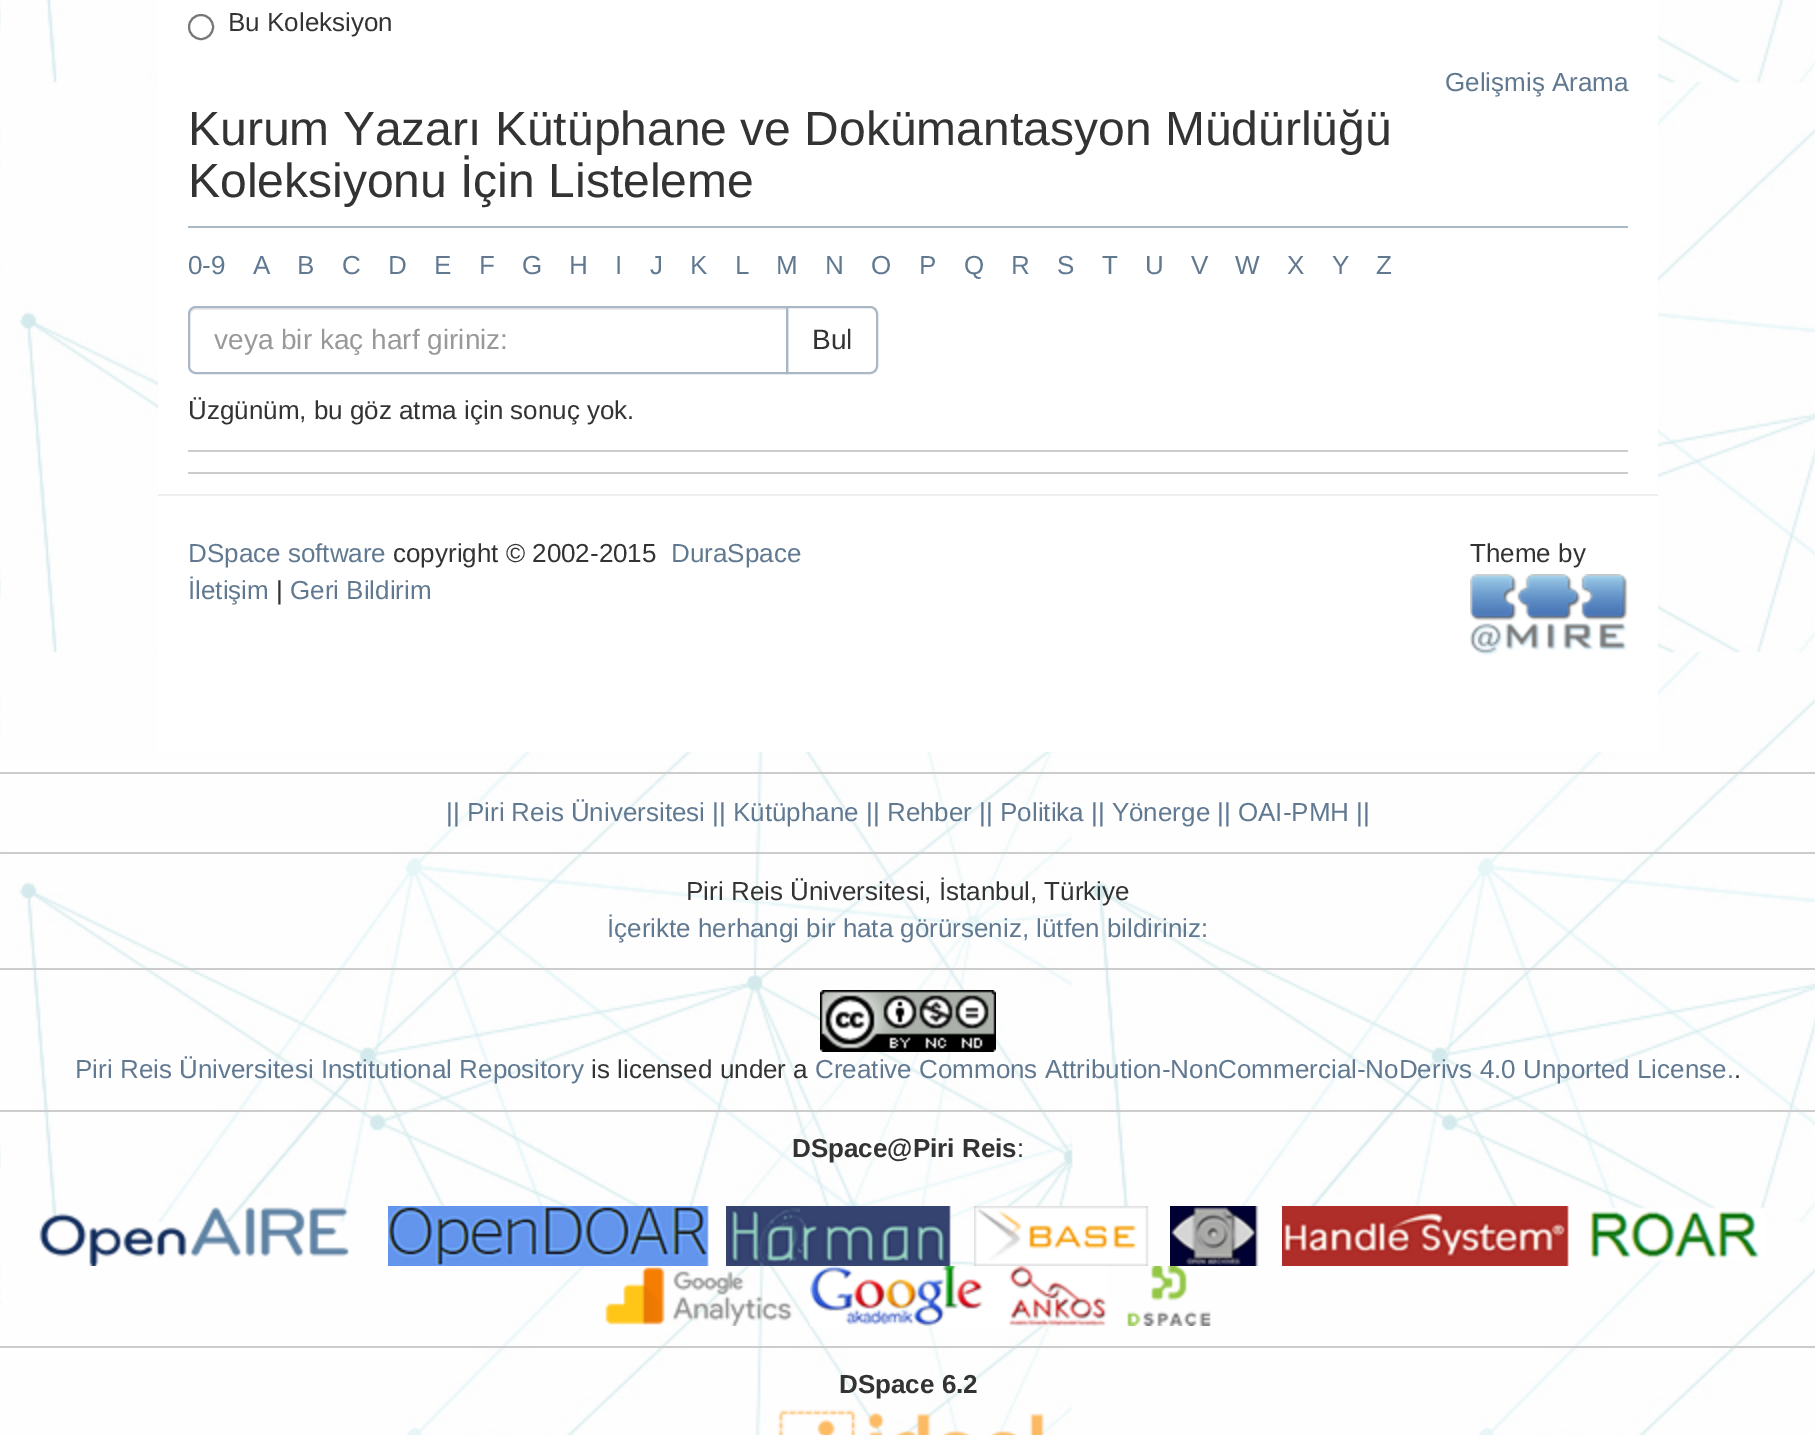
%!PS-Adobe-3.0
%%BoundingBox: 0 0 1815 1435
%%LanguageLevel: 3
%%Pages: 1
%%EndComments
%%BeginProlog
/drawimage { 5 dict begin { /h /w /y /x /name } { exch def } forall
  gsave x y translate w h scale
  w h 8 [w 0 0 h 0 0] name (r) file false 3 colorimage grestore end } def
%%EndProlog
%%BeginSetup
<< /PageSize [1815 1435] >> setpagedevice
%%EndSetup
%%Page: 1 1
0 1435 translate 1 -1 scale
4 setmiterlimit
1 setgray
0 0 1815 1435 rectfill
(images/1.raw) 0 0 1815 1435 drawimage
158 0 1500 752 rectfill
0.463 setgray
2 setlinewidth
newpath 201 27 12 0 360 arc closepath stroke
0.667 0.722 0.776 setrgbcolor
188 226 1440 2 rectfill
newpath 787 307 moveto 870 307 lineto 874 307 877 310 877 314 curveto 877 366 lineto 877 370 874 373 870 373 curveto 787 373 lineto closepath stroke
1 setgray
newpath 196 306 moveto 788 306 lineto 788 374 lineto 196 374 lineto 191.5 374 188 370.5 188 366 curveto 188 314 lineto 188 309.5 191.5 306 196 306 curveto closepath fill
0.925 setgray
newpath 196 310 moveto 786 310 lineto 786 308 lineto 196 308 lineto 191 308 190 312 190 316 curveto 190 313 193 310 196 310 curveto closepath fill
0.667 0.722 0.776 setrgbcolor
newpath 196 307 moveto 787 307 lineto 787 373 lineto 196 373 lineto 192 373 189 370 189 366 curveto 189 314 lineto 189 310 192 307 196 307 curveto closepath stroke
0.8 setgray
188 450 1440 2 rectfill
188 472 1440 2 rectfill
0.933 setgray
158 494 1500 2 rectfill
(images/2.raw) 1470 574 158 82 drawimage
0.8 setgray
0 772 1815 2 rectfill
0 852 1815 2 rectfill
0 968 1815 2 rectfill
(images/3.raw) 820 990 176 62 drawimage
0 1110 1815 2 rectfill
(images/4.raw) 39 1207 310 59 drawimage
(images/5.raw) 388 1206 321 60 drawimage
(images/6.raw) 726 1206 225 60 drawimage
(images/7.raw) 974 1206 175 60 drawimage
(images/8.raw) 1170 1206 89 60 drawimage
(images/9.raw) 1282 1206 287 60 drawimage
(images/10.raw) 1589 1207 176 54 drawimage
(images/11.raw) 605 1266 188 60 drawimage
(images/12.raw) 810 1266 194 60 drawimage
(images/13.raw) 1004 1266 103 60 drawimage
(images/14.raw) 1127 1266 84 60 drawimage
0 1346 1815 2 rectfill
(images/15.raw) 777 1409 268 26 drawimage
/LiberationSans-Regular [26 0 0 -26 0 0] selectfont
0.2 setgray
228 31 moveto (Bu Koleksiyon) show
0.376 0.471 0.565 setrgbcolor
1445 91 moveto (Gelişmiş Arama) show
/LiberationSans-Regular [48 0 0 -48 0 0] selectfont
0.2 setgray
188 145 moveto (Kurum Yazarı Kütüphane ve Dokümantasyon Müdürlüğü) show
188 197 moveto (Koleksiyonu İçin Listeleme) show
/LiberationSans-Regular [26 0 0 -26 0 0] selectfont
0.376 0.471 0.565 setrgbcolor
188 274 moveto (0-9) show
253 274 moveto (A) show
297 274 moveto (B) show
342 274 moveto (C) show
388 274 moveto (D) show
434 274 moveto (E) show
479 274 moveto (F) show
522 274 moveto (G) show
569 274 moveto (H) show
615 274 moveto (I) show
650 274 moveto (J) show
690 274 moveto (K) show
735 274 moveto (L) show
776 274 moveto (M) show
825 274 moveto (N) show
871 274 moveto (O) show
919 274 moveto (P) show
964 274 moveto (Q) show
1011 274 moveto (R) show
1057 274 moveto (S) show
1102 274 moveto (T) show
1145 274 moveto (U) show
1191 274 moveto (V) show
1235 274 moveto (W) show
1287 274 moveto (X) show
1332 274 moveto (Y) show
1376 274 moveto (Z) show
/LiberationSans-Regular [28 0 0 -28 0 0] selectfont
0.6 setgray
214 349 moveto (veya bir kaç harf giriniz:) show
0.2 setgray
812 349 moveto (Bul) show
/LiberationSans-Regular [26 0 0 -26 0 0] selectfont
188 419 moveto (Üzgünüm, bu göz atma için sonuç yok.) show
0.376 0.471 0.565 setrgbcolor
188 562 moveto (DSpace software) show
0.2 setgray
393 562 moveto (copyright © 2002-2015) show
0.376 0.471 0.565 setrgbcolor
671 562 moveto (DuraSpace) show
188 599 moveto (İletişim) show
0.2 setgray
276 599 moveto (|) show
0.376 0.471 0.565 setrgbcolor
290 599 moveto (Geri Bildirim) show
0.2 setgray
1470 562 moveto (Theme by) show
0.376 0.471 0.565 setrgbcolor
446 821 moveto (|| Piri Reis Üniversitesi || Kütüphane || Rehber || Politika || Yönerge || OAI-PMH ||) show
0.2 setgray
686 900 moveto (Piri Reis Üniversitesi, İstanbul, Türkiye) show
0.376 0.471 0.565 setrgbcolor
607 937 moveto (İçerikte herhangi bir hata görürseniz, lütfen bildiriniz:) show
75 1078 moveto (Piri Reis Üniversitesi Institutional Repository) show
0.2 setgray
591 1078 moveto (is licensed under a) show
0.376 0.471 0.565 setrgbcolor
815 1078 moveto (Creative Commons Attribution-NonCommercial-NoDerivs 4.0 Unported License.) show
0.2 setgray
1734 1078 moveto (.) show
/LiberationSans-Bold [26 0 0 -26 0 0] selectfont
792 1157 moveto (DSpace@Piri Reis) show
/LiberationSans-Regular [26 0 0 -26 0 0] selectfont
1017 1157 moveto (:) show
/LiberationSans-Bold [26 0 0 -26 0 0] selectfont
839 1393 moveto (DSpace 6.2) show
showpage
%%EOF
